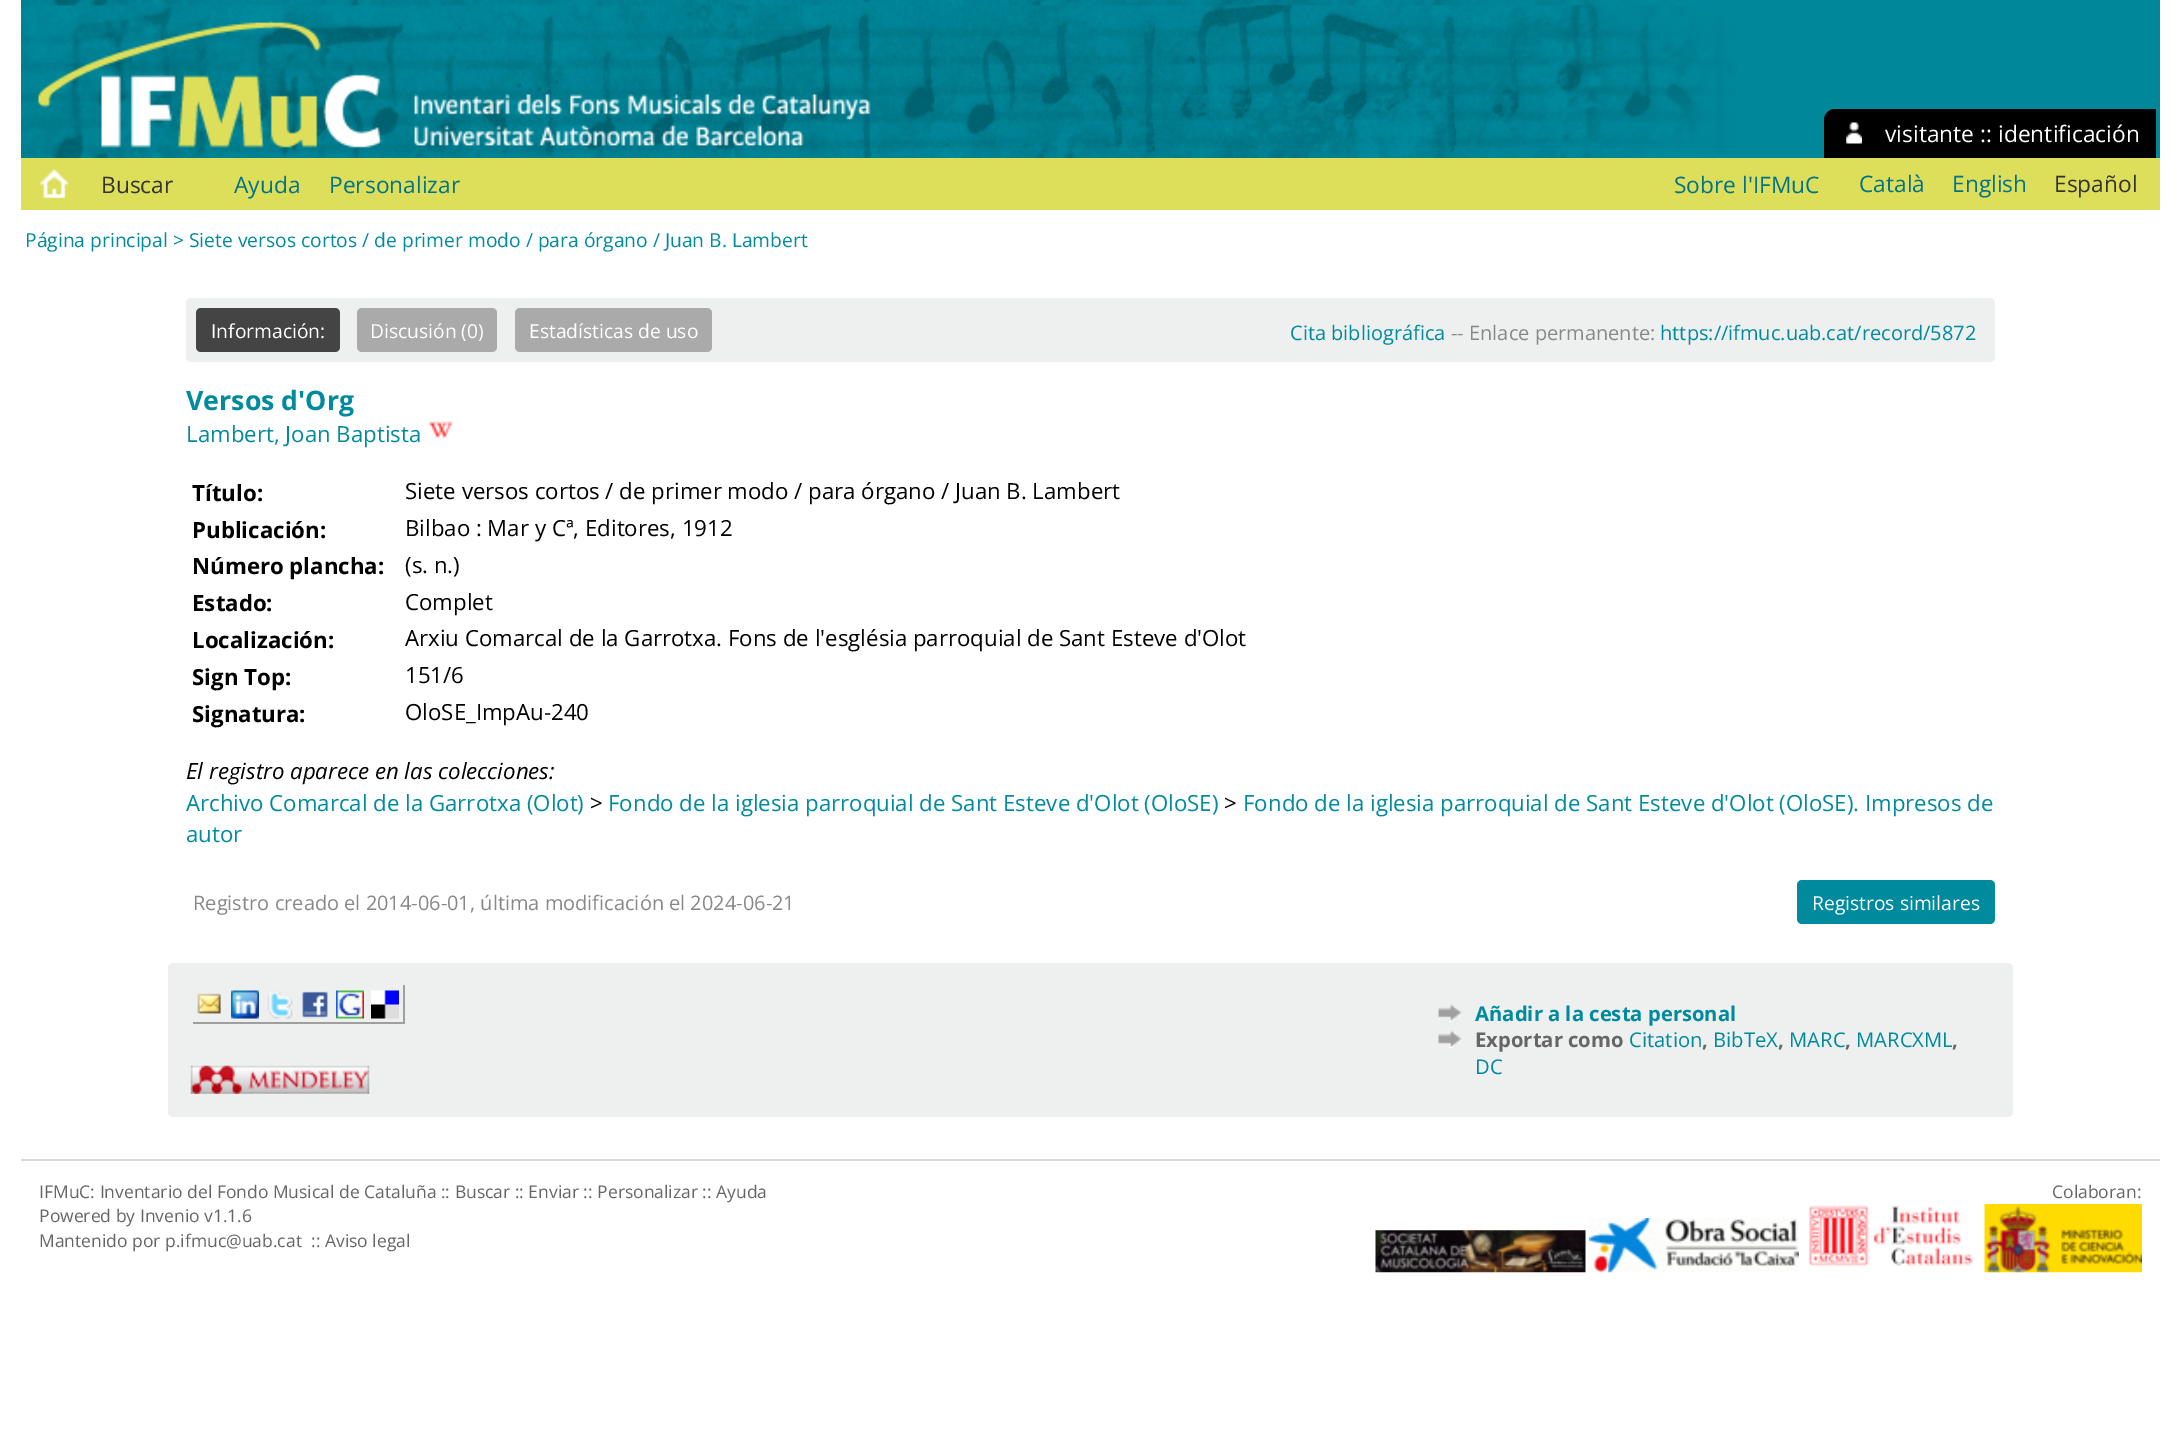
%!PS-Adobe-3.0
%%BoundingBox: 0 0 2180 1445
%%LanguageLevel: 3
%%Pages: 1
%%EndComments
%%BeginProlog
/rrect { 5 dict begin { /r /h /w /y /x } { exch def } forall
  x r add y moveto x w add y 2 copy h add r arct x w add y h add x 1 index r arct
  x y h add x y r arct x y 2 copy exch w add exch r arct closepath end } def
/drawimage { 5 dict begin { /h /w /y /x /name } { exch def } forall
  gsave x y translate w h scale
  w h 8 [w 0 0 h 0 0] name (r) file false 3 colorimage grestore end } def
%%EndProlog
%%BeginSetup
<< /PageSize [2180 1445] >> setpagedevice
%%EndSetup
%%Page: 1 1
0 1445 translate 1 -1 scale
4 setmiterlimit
1 setgray
0 0 2180 1445 rectfill
0 0.529 0.604 setrgbcolor
1737 0 423 158 rectfill
(images/1.raw) 21 0 1716 158 drawimage
0 setgray
newpath 1835 109 moveto 2156 109 lineto 2156 158 lineto 1824 158 lineto 1824 120 lineto 1824 114 1829 109 1835 109 curveto closepath fill
(images/2.raw) 1846 122 16 22 drawimage
0.867 0.875 0.353 setrgbcolor
21 158 2139 52 rectfill
(images/3.raw) 40 169 29 29 drawimage
0.933 0.941 0.937 setrgbcolor
186 298 1809 64 5 rrect fill
0.267 setgray
196 308 144 44 5 rrect fill
0.667 setgray
357 308 140 44 5 rrect fill
515 308 197 44 5 rrect fill
(images/4.raw) 428 421 26 17 drawimage
0 0.541 0.62 setrgbcolor
1797 880 198 44 5 rrect fill
0.933 0.941 0.937 setrgbcolor
168 963 1845 154 5 rrect fill
0.624 setgray
403 985 2 39 rectfill
191 1022 213 2 rectfill
0.933 setgray
191 1022 2 2 rectfill
(images/5.raw) 197 993 24 21 drawimage
(images/6.raw) 231 990 28 29 drawimage
(images/7.raw) 267 991 26 28 drawimage
(images/8.raw) 302 991 26 27 drawimage
(images/9.raw) 336 990 28 29 drawimage
(images/10.raw) 371 990 28 29 drawimage
(images/11.raw) 190 1065 180 29 drawimage
(images/12.raw) 1438 1004 24 18 drawimage
(images/13.raw) 1438 1030 24 18 drawimage
0.831 0.855 0.839 setrgbcolor
21 1159 2139 2 rectfill
(images/14.raw) 1375 1230 211 43 drawimage
(images/15.raw) 1589 1218 210 55 drawimage
(images/16.raw) 1809 1205 164 61 drawimage
(images/17.raw) 1984 1204 158 69 drawimage
/OpenSans-Regular [22.75 0 0 -22.75 0 0] selectfont
1 setgray
1885 142 moveto (visitante :: identificación) show
0.2 setgray
101 193 moveto (Buscar) show
0 0.447 0.541 setrgbcolor
234 193 moveto (Ayuda) show
329 193 moveto (Personalizar) show
1674 193 moveto (Sobre l'IFMuC) show
1859 192 moveto (Català) show
1952 192 moveto (English) show
0.2 setgray
2054 192 moveto (Español) show
/OpenSans-Regular [19.25 0 0 -19.25 0 0] selectfont
0 0.541 0.62 setrgbcolor
25 247 moveto (Página principal > Siete versos cortos / de primer modo / para órgano / Juan B. Lambert) show
1 setgray
211 338 moveto (Información:) show
370 338 moveto (Discusión \(0\)) show
529 338 moveto (Estadísticas de uso) show
/OpenSans-Regular [20 0 0 -20 0 0] selectfont
0 0.541 0.62 setrgbcolor
1290 340 moveto (Cita bibliográfica) show
0.533 setgray
1451 340 moveto (-- Enlace permanente:) show
0 0.541 0.62 setrgbcolor
1660 340 moveto (https://ifmuc.uab.cat/record/5872) show
/OpenSans-Bold [26.75 0 0 -26.75 0 0] selectfont
186 410 moveto (Versos d'Org) show
/OpenSans-Regular [22.25 0 0 -22.25 0 0] selectfont
186 442 moveto (Lambert, Joan Baptista) show
/OpenSans-Bold [22.25 0 0 -22.25 0 0] selectfont
0 setgray
192 501 moveto (Título:) show
/OpenSans-Regular [22.25 0 0 -22.25 0 0] selectfont
405 499 moveto (Siete versos cortos / de primer modo / para órgano / Juan B. Lambert) show
/OpenSans-Bold [22.25 0 0 -22.25 0 0] selectfont
192 538 moveto (Publicación:) show
/OpenSans-Regular [22.25 0 0 -22.25 0 0] selectfont
405 536 moveto (Bilbao : Mar y Cª, Editores, 1912) show
/OpenSans-Bold [22.25 0 0 -22.25 0 0] selectfont
192 574 moveto (Número plancha:) show
/OpenSans-Regular [22.25 0 0 -22.25 0 0] selectfont
405 573 moveto (\(s. n.\)) show
/OpenSans-Bold [22.25 0 0 -22.25 0 0] selectfont
192 611 moveto (Estado:) show
/OpenSans-Regular [22.25 0 0 -22.25 0 0] selectfont
405 610 moveto (Complet) show
/OpenSans-Bold [22.25 0 0 -22.25 0 0] selectfont
192 648 moveto (Localización:) show
/OpenSans-Regular [22.25 0 0 -22.25 0 0] selectfont
405 646 moveto (Arxiu Comarcal de la Garrotxa. Fons de l'església parroquial de Sant Esteve d'Olot) show
/OpenSans-Bold [22.25 0 0 -22.25 0 0] selectfont
192 685 moveto (Sign Top:) show
/OpenSans-Regular [22.25 0 0 -22.25 0 0] selectfont
405 683 moveto (151/6) show
/OpenSans-Bold [22.25 0 0 -22.25 0 0] selectfont
192 722 moveto (Signatura:) show
/OpenSans-Regular [22.25 0 0 -22.25 0 0] selectfont
405 720 moveto (OloSE_ImpAu-240) show
/OpenSans-Italic [22.25 0 0 -22.25 0 0] selectfont
186 779 moveto (El registro aparece en las colecciones:) show
/OpenSans-Regular [22.25 0 0 -22.25 0 0] selectfont
0 0.541 0.62 setrgbcolor
186 811 moveto (Archivo Comarcal de la Garrotxa \(Olot\)) show
0 setgray
590 811 moveto (>) show
0 0.541 0.62 setrgbcolor
608 811 moveto (Fondo de la iglesia parroquial de Sant Esteve d'Olot \(OloSE\)) show
0 setgray
1224 811 moveto (>) show
0 0.541 0.62 setrgbcolor
1243 811 moveto (Fondo de la iglesia parroquial de Sant Esteve d'Olot \(OloSE\). Impresos de) show
186 842 moveto (autor) show
/OpenSans-Regular [20 0 0 -20 0 0] selectfont
0.533 setgray
193 910 moveto (Registro creado el 2014-06-01, última modificación el 2024-06-21) show
/OpenSans-Regular [19.25 0 0 -19.25 0 0] selectfont
1 setgray
1812 910 moveto (Registros similares) show
/OpenSans-Bold [20.25 0 0 -20.25 0 0] selectfont
0 0.541 0.62 setrgbcolor
1475 1021 moveto (Añadir a la cesta personal) show
0.4 setgray
1475 1047 moveto (Exportar como) show
/OpenSans-Regular [20.25 0 0 -20.25 0 0] selectfont
0 0.541 0.62 setrgbcolor
1629 1047 moveto (Citation) show
/OpenSans-Bold [20.25 0 0 -20.25 0 0] selectfont
0.4 setgray
1702 1047 moveto (,) show
/OpenSans-Regular [20.25 0 0 -20.25 0 0] selectfont
0 0.541 0.62 setrgbcolor
1713 1047 moveto (BibTeX) show
/OpenSans-Bold [20.25 0 0 -20.25 0 0] selectfont
0.4 setgray
1778 1047 moveto (,) show
/OpenSans-Regular [20.25 0 0 -20.25 0 0] selectfont
0 0.541 0.62 setrgbcolor
1789 1047 moveto (MARC) show
/OpenSans-Bold [20.25 0 0 -20.25 0 0] selectfont
0.4 setgray
1845 1047 moveto (,) show
/OpenSans-Regular [20.25 0 0 -20.25 0 0] selectfont
0 0.541 0.62 setrgbcolor
1856 1047 moveto (MARCXML) show
/OpenSans-Bold [20.25 0 0 -20.25 0 0] selectfont
0.4 setgray
1952 1047 moveto (,) show
/OpenSans-Regular [20.25 0 0 -20.25 0 0] selectfont
0 0.541 0.62 setrgbcolor
1475 1074 moveto (DC) show
/OpenSans-Regular [17.5 0 0 -17.5 0 0] selectfont
0.4 setgray
39 1198 moveto (IFMuC: Inventario del Fondo Musical de Cataluña :: Buscar :: Enviar :: Personalizar :: Ayuda) show
39 1222 moveto (Powered by Invenio v1.1.6) show
39 1247 moveto (Mantenido por p.ifmuc@uab.cat) show
311 1247 moveto (:: Aviso legal) show
2052 1198 moveto (Colaboran:) show
showpage
%%EOF
